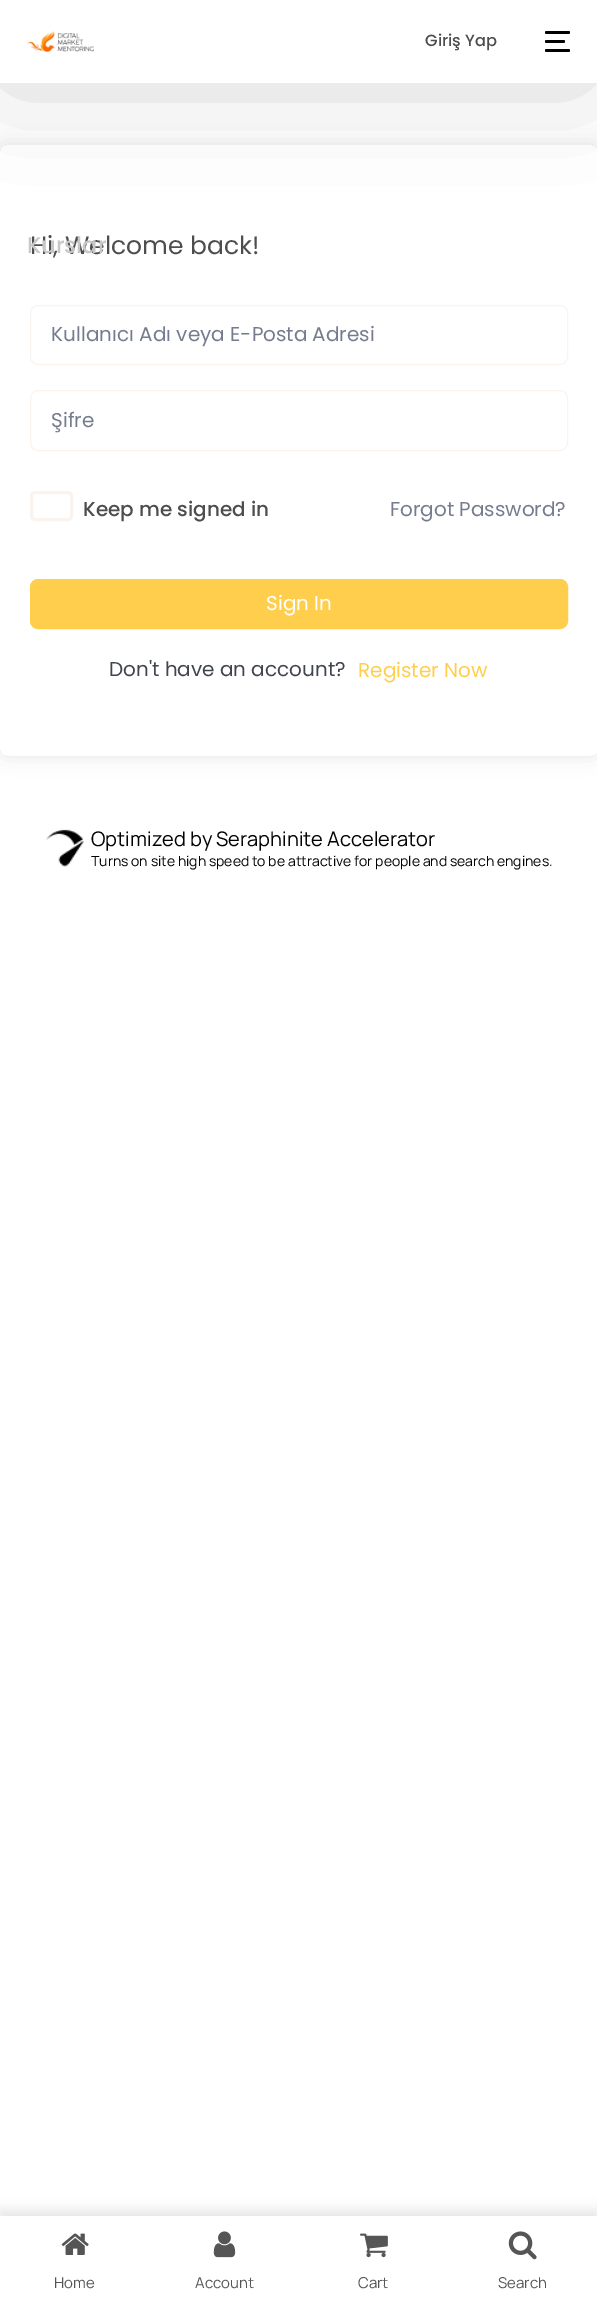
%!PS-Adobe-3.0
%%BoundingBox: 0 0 597 2314
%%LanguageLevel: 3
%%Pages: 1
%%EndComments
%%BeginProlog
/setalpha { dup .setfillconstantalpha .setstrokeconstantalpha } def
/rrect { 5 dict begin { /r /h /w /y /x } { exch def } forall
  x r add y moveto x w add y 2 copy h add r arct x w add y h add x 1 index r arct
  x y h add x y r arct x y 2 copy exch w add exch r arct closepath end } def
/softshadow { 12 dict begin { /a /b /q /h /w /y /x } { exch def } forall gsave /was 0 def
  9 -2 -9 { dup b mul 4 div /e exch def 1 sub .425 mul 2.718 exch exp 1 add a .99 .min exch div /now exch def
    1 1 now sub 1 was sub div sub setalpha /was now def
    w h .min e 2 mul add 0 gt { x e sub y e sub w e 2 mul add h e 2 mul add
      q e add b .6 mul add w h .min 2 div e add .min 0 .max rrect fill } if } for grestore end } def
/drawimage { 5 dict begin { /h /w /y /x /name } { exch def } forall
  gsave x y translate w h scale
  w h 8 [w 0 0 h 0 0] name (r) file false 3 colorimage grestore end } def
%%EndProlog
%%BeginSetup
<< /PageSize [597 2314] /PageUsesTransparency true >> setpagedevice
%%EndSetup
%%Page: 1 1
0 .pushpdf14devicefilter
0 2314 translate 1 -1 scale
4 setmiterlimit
1 setgray
0 0 597 2314 rectfill
0 setgray
23 29 547 32 0 56 0.25 softshadow
1 setgray
0 0 597 83 rectfill
(images/1.raw) 27 31 67 21 drawimage
0 setgray
545 31 25 3 1.5 rrect fill
545 40 20 3 1.5 rrect fill
545 49 25 3 1.5 rrect fill
gsave
newpath 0 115 moveto 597 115 lineto 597 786 lineto 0 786 lineto closepath 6 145 moveto 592 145 lineto 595.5 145 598 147.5 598 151 curveto 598 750 lineto 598 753.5 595.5 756 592 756 curveto 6 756 lineto 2.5 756 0 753.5 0 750 curveto 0 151 lineto 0 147.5 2.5 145 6 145 curveto closepath eoclip newpath
0 145 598 611 6 9.5 0.1 softshadow
grestore
0.984 0.957 0.933 setrgbcolor
30.5 305.5 537 59 7.5 rrect stroke
30.5 390.5 537 60 7.5 rrect stroke
3 setlinewidth
31.5 492.5 40 27 3.5 rrect stroke
1 0.808 0.298 setrgbcolor
30.5 579.5 537 49 7.5 rrect gsave fill grestore
1 setlinewidth
stroke
(images/2.raw) 46 829 38 38 drawimage
0 setgray
0 2210 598 99 0 6 0.1 softshadow
1 setgray
0 2216 597 98 rectfill
(images/3.raw) 61 2233 28 22 drawimage
(images/4.raw) 213 2231 23 27 drawimage
(images/5.raw) 360 2233 28 25 drawimage
(images/6.raw) 508 2231 29 29 drawimage
/Poppins-Medium [16.25 0 0 -16.25 0 0] selectfont
0.302 setgray
425 46 moveto (Giriş Yap) show
/Poppins-Regular [25 0 0 -25 0 0] selectfont
30 254 moveto (Hi, Welcome back!) show
/Poppins-Regular [20 0 0 -20 0 0] selectfont
0.459 0.486 0.557 setrgbcolor
51 341 moveto (Kullanıcı Adı veya E-Posta Adresi) show
51 427 moveto (Şifre) show
/Poppins-Medium [20 0 0 -20 0 0] selectfont
0.302 setgray
83 516 moveto (Keep me signed in) show
/Poppins-Regular [20 0 0 -20 0 0] selectfont
0.459 0.486 0.557 setrgbcolor
390 516 moveto (Forgot Password?) show
1 setgray
266 610 moveto (Sign In) show
0.255 0.271 0.31 setrgbcolor
109 676 moveto (Don't have an account?) show
1 0.808 0.298 setrgbcolor
358 677 moveto (Register Now) show
/Poppins-Medium [22.5 0 0 -22.5 0 0] selectfont
0.78 setgray
27 253 moveto (Kurslar) show
/Manrope-Regular [20 0 0 -20 0 0] selectfont
0 setgray
91 846 moveto (Optimized by Seraphinite Accelerator) show
/Manrope-Regular [14 0 0 -14 0 0] selectfont
91 866 moveto (Turns on site high speed to be attractive for people and search engines.) show
/Manrope-Regular [15 0 0 -15 0 0] selectfont
0.333 setgray
54 2288 moveto (Home) show
195 2288 moveto (Account) show
358 2288 moveto (Cart) show
498 2288 moveto (Search) show
.poppdf14devicefilter showpage
%%EOF
